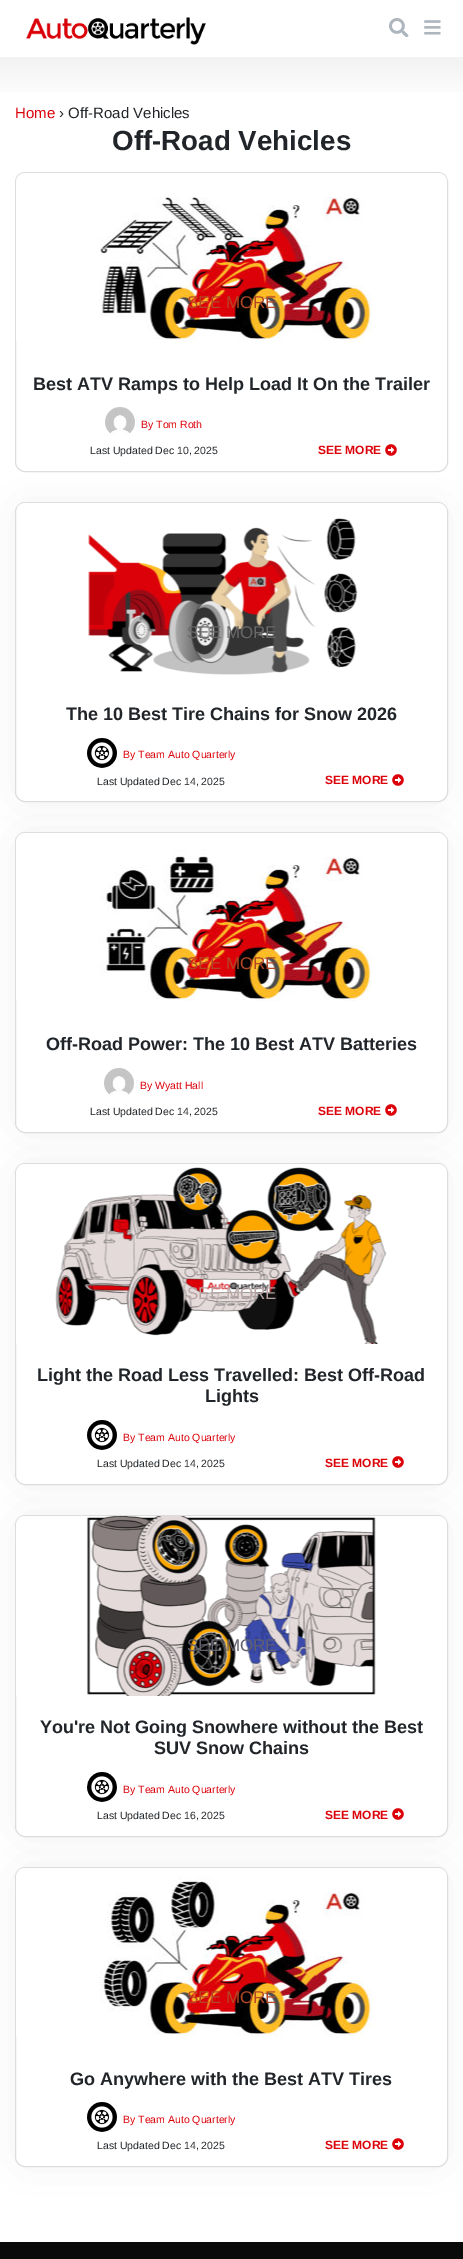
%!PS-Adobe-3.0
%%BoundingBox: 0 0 463 2259
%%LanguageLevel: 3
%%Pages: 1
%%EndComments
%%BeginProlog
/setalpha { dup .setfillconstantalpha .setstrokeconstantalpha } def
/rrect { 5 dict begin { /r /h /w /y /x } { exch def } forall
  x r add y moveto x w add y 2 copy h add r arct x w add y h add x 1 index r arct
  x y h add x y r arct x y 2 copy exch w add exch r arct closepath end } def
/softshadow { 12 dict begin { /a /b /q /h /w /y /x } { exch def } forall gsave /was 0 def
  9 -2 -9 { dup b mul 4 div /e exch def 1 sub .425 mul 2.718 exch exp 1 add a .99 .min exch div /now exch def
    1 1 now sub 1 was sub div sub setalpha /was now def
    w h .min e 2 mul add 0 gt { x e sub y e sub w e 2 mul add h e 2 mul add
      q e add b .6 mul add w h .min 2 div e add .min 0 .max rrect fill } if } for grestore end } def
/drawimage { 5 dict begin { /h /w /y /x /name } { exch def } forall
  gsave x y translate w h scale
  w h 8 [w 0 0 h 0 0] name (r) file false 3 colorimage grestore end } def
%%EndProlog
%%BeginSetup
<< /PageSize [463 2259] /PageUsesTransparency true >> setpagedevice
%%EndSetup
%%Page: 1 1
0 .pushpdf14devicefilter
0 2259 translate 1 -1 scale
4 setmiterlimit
1 setgray
0 0 463 2259 rectfill
(images/1.raw) 26 17 180 28 drawimage
(images/2.raw) 389 18 20 19 drawimage
(images/3.raw) 424 20 17 15 drawimage
gsave newpath 0 57 moveto 463 57 lineto 463 92 lineto 0 92 lineto closepath clip newpath
<< /ShadingType 2 /ColorSpace /DeviceRGB /Coords [231 57 232 2242] /Extend [true true] /Function << /FunctionType 3 /Domain [0 1] /Functions [<< /FunctionType 2 /Domain [0 1] /C0 [0.949 0.949 0.949] /C1 [1 1 1] /N 1 >> << /FunctionType 2 /Domain [0 1] /C0 [1 1 1] /C1 [1 1 1] /N 1 >>] /Bounds [0.02] /Encode [0 1 0 1] >> >> shfill grestore
0.867 setgray
15.5 172.5 432 299 9.5 rrect stroke
(images/4.raw) 16 173 431 168 drawimage
(images/5.raw) 105 407 30 27 drawimage
(images/6.raw) 385 444 12 12 drawimage
0.753 setgray
15 502 433 300 10 24.5 0.24 softshadow
1 setgray
15.5 502.5 432 299 9.5 rrect gsave fill grestore
0.867 setgray
stroke
(images/7.raw) 17 503 430 172 drawimage
(images/8.raw) 87 738 30 30 drawimage
(images/6.raw) 392 774 12 12 drawimage
0.753 setgray
15 832 433 301 10 24.5 0.24 softshadow
1 setgray
15.5 832.5 432 300 9.5 rrect gsave fill grestore
0.867 setgray
stroke
(images/9.raw) 16 833 431 168 drawimage
(images/10.raw) 104 1068 30 27 drawimage
(images/6.raw) 385 1104 12 12 drawimage
0.753 setgray
15 1163 433 322 10 24.5 0.24 softshadow
1 setgray
15.5 1163.5 432 321 9.5 rrect gsave fill grestore
0.867 setgray
stroke
(images/11.raw) 16 1164 431 180 drawimage
(images/12.raw) 87 1420 30 30 drawimage
(images/6.raw) 392 1456 12 12 drawimage
0.753 setgray
15 1515 433 322 10 24.5 0.24 softshadow
1 setgray
15.5 1515.5 432 321 9.5 rrect gsave fill grestore
0.867 setgray
stroke
(images/13.raw) 16 1516 431 180 drawimage
(images/14.raw) 87 1772 30 30 drawimage
(images/6.raw) 392 1808 12 12 drawimage
0.753 setgray
15 1867 433 300 10 24.5 0.24 softshadow
1 setgray
15.5 1867.5 432 299 9.5 rrect gsave fill grestore
0.867 setgray
stroke
(images/15.raw) 16 1868 431 168 drawimage
(images/12.raw) 87 2102 30 30 drawimage
(images/6.raw) 392 2138 12 12 drawimage
0.039 setgray
0 2242 463 17 rectfill
/LiberationSans-Regular [15 0 0 -15 0 0] selectfont
0.863 0 0.035 setrgbcolor
15 118 moveto (Home) show
0.129 0.145 0.161 setrgbcolor
59 118 moveto (› Off-Road Vehicles) show
/LiberationSans-Bold [27.75 0 0 -27.75 0 0] selectfont
112 150 moveto (Off-Road Vehicles) show
/LiberationSans-Regular [17 0 0 -17 0 0] selectfont
0.702 0.278 0.141 setrgbcolor
187 308 moveto (SEE MORE) show
/LiberationSans-Bold [18 0 0 -18 0 0] selectfont
0.129 0.145 0.161 setrgbcolor
33 390 moveto (Best ATV Ramps to Help Load It On the Trailer) show
/LiberationSans-Regular [10.5 0 0 -10.5 0 0] selectfont
0.863 0 0.035 setrgbcolor
141 428 moveto (By Tom Roth) show
0.129 0.145 0.161 setrgbcolor
90 454 moveto (Last Updated Dec 10, 2025) show
/LiberationSans-Bold [12 0 0 -12 0 0] selectfont
0.863 0 0.035 setrgbcolor
318 454 moveto (SEE MORE) show
/LiberationSans-Regular [17 0 0 -17 0 0] selectfont
0.412 0.408 0.408 setrgbcolor
187 638 moveto (SEE MORE) show
/LiberationSans-Bold [18 0 0 -18 0 0] selectfont
0.129 0.145 0.161 setrgbcolor
66 720 moveto (The 10 Best Tire Chains for Snow 2026) show
/LiberationSans-Regular [10.5 0 0 -10.5 0 0] selectfont
0.863 0 0.035 setrgbcolor
123 758 moveto (By Team Auto Quarterly) show
0.129 0.145 0.161 setrgbcolor
97 785 moveto (Last Updated Dec 14, 2025) show
/LiberationSans-Bold [12 0 0 -12 0 0] selectfont
0.863 0 0.035 setrgbcolor
325 784 moveto (SEE MORE) show
/LiberationSans-Regular [17 0 0 -17 0 0] selectfont
0.702 0.278 0.141 setrgbcolor
187 969 moveto (SEE MORE) show
/LiberationSans-Bold [18 0 0 -18 0 0] selectfont
0.129 0.145 0.161 setrgbcolor
46 1050 moveto (Off-Road Power: The 10 Best ATV Batteries) show
/LiberationSans-Regular [10.5 0 0 -10.5 0 0] selectfont
0.863 0 0.035 setrgbcolor
140 1089 moveto (By Wyatt Hall) show
0.129 0.145 0.161 setrgbcolor
90 1115 moveto (Last Updated Dec 14, 2025) show
/LiberationSans-Bold [12 0 0 -12 0 0] selectfont
0.863 0 0.035 setrgbcolor
318 1115 moveto (SEE MORE) show
/LiberationSans-Regular [17 0 0 -17 0 0] selectfont
0.722 0.643 0.643 setrgbcolor
187 1299 moveto (SEE MORE) show
/LiberationSans-Bold [18 0 0 -18 0 0] selectfont
0.129 0.145 0.161 setrgbcolor
37 1381 moveto (Light the Road Less Travelled: Best Off-Road) show
205 1402 moveto (Lights) show
/LiberationSans-Regular [10.5 0 0 -10.5 0 0] selectfont
0.863 0 0.035 setrgbcolor
123 1441 moveto (By Team Auto Quarterly) show
0.129 0.145 0.161 setrgbcolor
97 1467 moveto (Last Updated Dec 14, 2025) show
/LiberationSans-Bold [12 0 0 -12 0 0] selectfont
0.863 0 0.035 setrgbcolor
325 1467 moveto (SEE MORE) show
/LiberationSans-Regular [17 0 0 -17 0 0] selectfont
0.38 0.373 0.427 setrgbcolor
187 1651 moveto (SEE MORE) show
/LiberationSans-Bold [18 0 0 -18 0 0] selectfont
0.129 0.145 0.161 setrgbcolor
40 1733 moveto (You're Not Going Snowhere without the Best) show
154 1754 moveto (SUV Snow Chains) show
/LiberationSans-Regular [10.5 0 0 -10.5 0 0] selectfont
0.863 0 0.035 setrgbcolor
123 1793 moveto (By Team Auto Quarterly) show
0.129 0.145 0.161 setrgbcolor
97 1819 moveto (Last Updated Dec 16, 2025) show
/LiberationSans-Bold [12 0 0 -12 0 0] selectfont
0.863 0 0.035 setrgbcolor
325 1819 moveto (SEE MORE) show
/LiberationSans-Regular [17 0 0 -17 0 0] selectfont
0.702 0.278 0.141 setrgbcolor
187 2003 moveto (SEE MORE) show
/LiberationSans-Bold [18 0 0 -18 0 0] selectfont
0.129 0.145 0.161 setrgbcolor
70 2085 moveto (Go Anywhere with the Best ATV Tires) show
/LiberationSans-Regular [10.5 0 0 -10.5 0 0] selectfont
0.863 0 0.035 setrgbcolor
123 2123 moveto (By Team Auto Quarterly) show
0.129 0.145 0.161 setrgbcolor
97 2149 moveto (Last Updated Dec 14, 2025) show
/LiberationSans-Bold [12 0 0 -12 0 0] selectfont
0.863 0 0.035 setrgbcolor
325 2149 moveto (SEE MORE) show
.poppdf14devicefilter showpage
%%EOF
